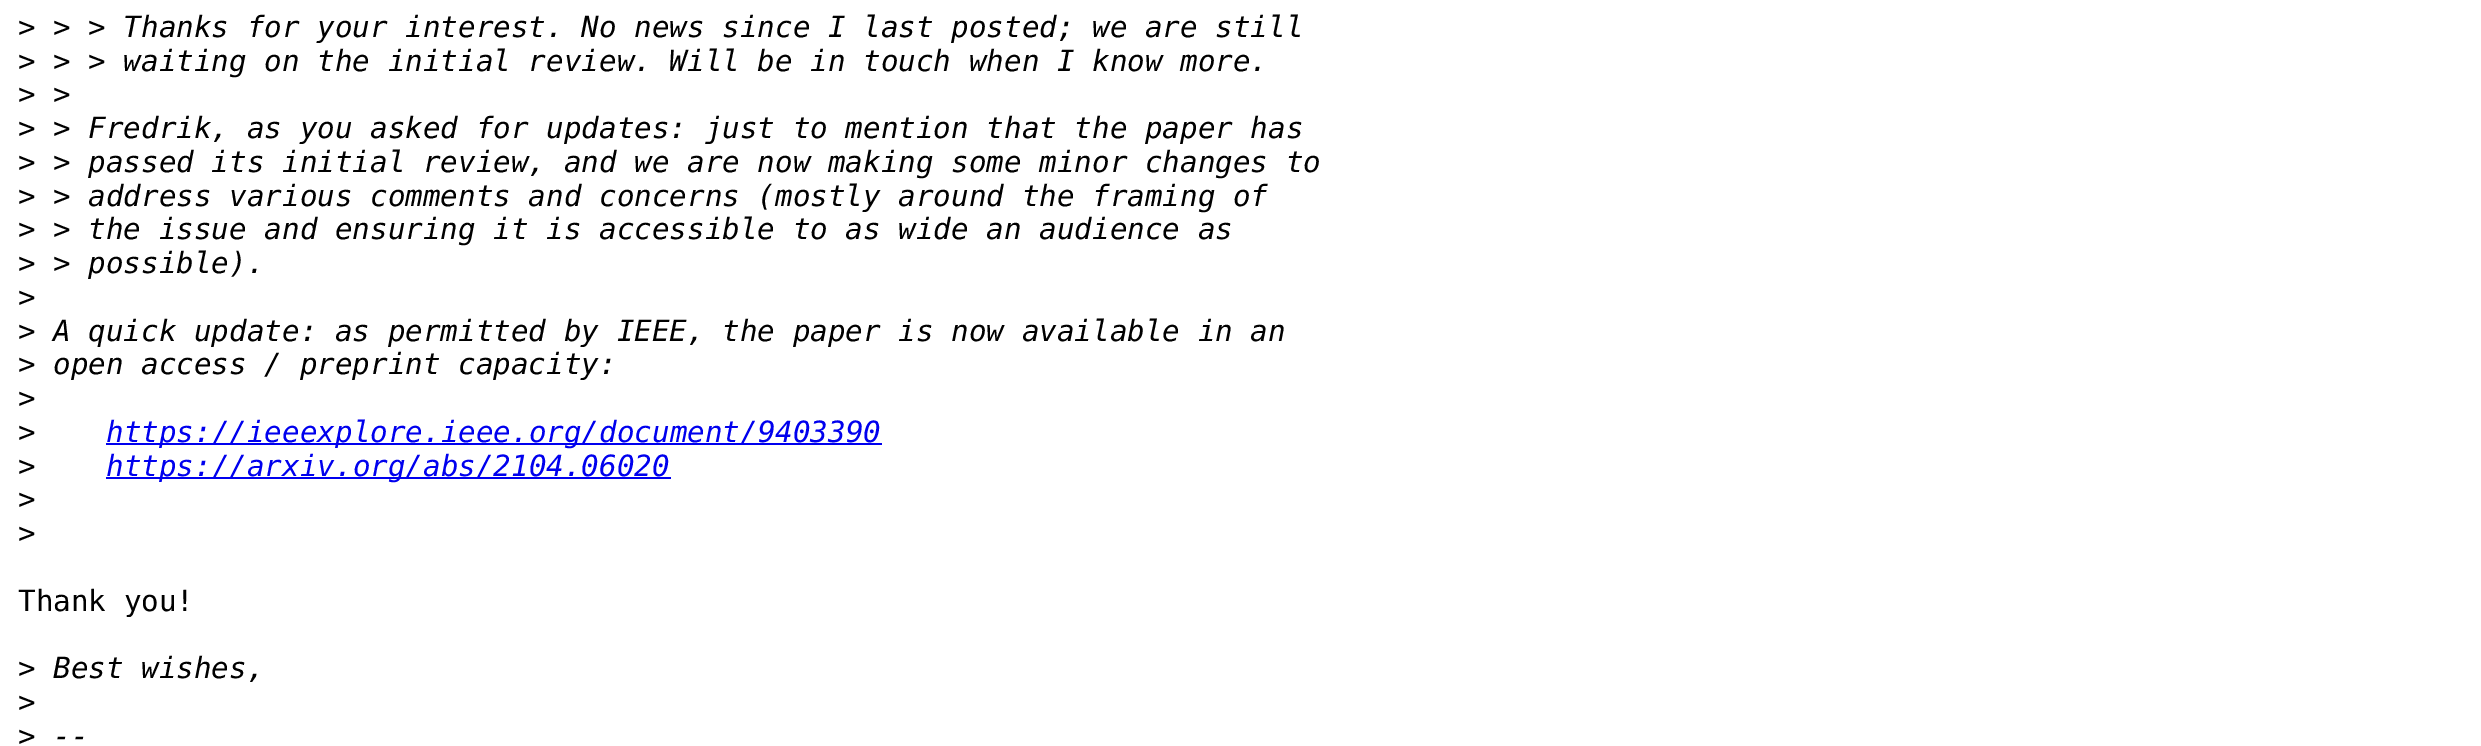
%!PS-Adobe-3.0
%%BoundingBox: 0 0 2481 746
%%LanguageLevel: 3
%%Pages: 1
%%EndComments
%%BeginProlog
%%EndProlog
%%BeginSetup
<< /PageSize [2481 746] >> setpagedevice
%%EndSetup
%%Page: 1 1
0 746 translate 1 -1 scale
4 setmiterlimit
1 setgray
0 0 2481 746 rectfill
0 0 0.933 setrgbcolor
106 443 776 2 rectfill
106 477 565 2 rectfill
/DejaVuSansMono-Regular [29.25 0 0 -29.25 0 0] selectfont
0 setgray
18 37 moveto (>) show
/DejaVuSansMono-Italic [29.25 0 0 -29.25 0 0] selectfont
53 37 moveto (> > Thanks for your interest. No news since I last posted; we are still) show
/DejaVuSansMono-Regular [29.25 0 0 -29.25 0 0] selectfont
18 71 moveto (>) show
/DejaVuSansMono-Italic [29.25 0 0 -29.25 0 0] selectfont
53 71 moveto (> > waiting on the initial review. Will be in touch when I know more.) show
/DejaVuSansMono-Regular [29.25 0 0 -29.25 0 0] selectfont
18 104 moveto (>) show
/DejaVuSansMono-Italic [29.25 0 0 -29.25 0 0] selectfont
53 104 moveto (>) show
/DejaVuSansMono-Regular [29.25 0 0 -29.25 0 0] selectfont
18 138 moveto (>) show
/DejaVuSansMono-Italic [29.25 0 0 -29.25 0 0] selectfont
53 138 moveto (> Fredrik, as you asked for updates: just to mention that the paper has) show
/DejaVuSansMono-Regular [29.25 0 0 -29.25 0 0] selectfont
18 172 moveto (>) show
/DejaVuSansMono-Italic [29.25 0 0 -29.25 0 0] selectfont
53 172 moveto (> passed its initial review, and we are now making some minor changes to) show
/DejaVuSansMono-Regular [29.25 0 0 -29.25 0 0] selectfont
18 206 moveto (>) show
/DejaVuSansMono-Italic [29.25 0 0 -29.25 0 0] selectfont
53 206 moveto (> address various comments and concerns \(mostly around the framing of) show
/DejaVuSansMono-Regular [29.25 0 0 -29.25 0 0] selectfont
18 239 moveto (>) show
/DejaVuSansMono-Italic [29.25 0 0 -29.25 0 0] selectfont
53 239 moveto (> the issue and ensuring it is accessible to as wide an audience as) show
/DejaVuSansMono-Regular [29.25 0 0 -29.25 0 0] selectfont
18 273 moveto (>) show
/DejaVuSansMono-Italic [29.25 0 0 -29.25 0 0] selectfont
53 273 moveto (> possible\).) show
/DejaVuSansMono-Regular [29.25 0 0 -29.25 0 0] selectfont
18 307 moveto (>) show
18 341 moveto (>) show
/DejaVuSansMono-Italic [29.25 0 0 -29.25 0 0] selectfont
53 341 moveto (A quick update: as permitted by IEEE, the paper is now available in an) show
/DejaVuSansMono-Regular [29.25 0 0 -29.25 0 0] selectfont
18 374 moveto (>) show
/DejaVuSansMono-Italic [29.25 0 0 -29.25 0 0] selectfont
53 374 moveto (open access / preprint capacity:) show
/DejaVuSansMono-Regular [29.25 0 0 -29.25 0 0] selectfont
18 408 moveto (>) show
18 442 moveto (>) show
/DejaVuSansMono-Italic [29.25 0 0 -29.25 0 0] selectfont
0 0 0.933 setrgbcolor
106 442 moveto (https://ieeexplore.ieee.org/document/9403390) show
/DejaVuSansMono-Regular [29.25 0 0 -29.25 0 0] selectfont
0 setgray
18 476 moveto (>) show
/DejaVuSansMono-Italic [29.25 0 0 -29.25 0 0] selectfont
0 0 0.933 setrgbcolor
106 476 moveto (https://arxiv.org/abs/2104.06020) show
/DejaVuSansMono-Regular [29.25 0 0 -29.25 0 0] selectfont
0 setgray
18 509 moveto (>) show
18 543 moveto (>) show
18 611 moveto (Thank you!) show
18 678 moveto (>) show
/DejaVuSansMono-Italic [29.25 0 0 -29.25 0 0] selectfont
53 678 moveto (Best wishes,) show
/DejaVuSansMono-Regular [29.25 0 0 -29.25 0 0] selectfont
18 712 moveto (>) show
18 746 moveto (>) show
/DejaVuSansMono-Italic [29.25 0 0 -29.25 0 0] selectfont
53 746 moveto (--) show
showpage
%%EOF
